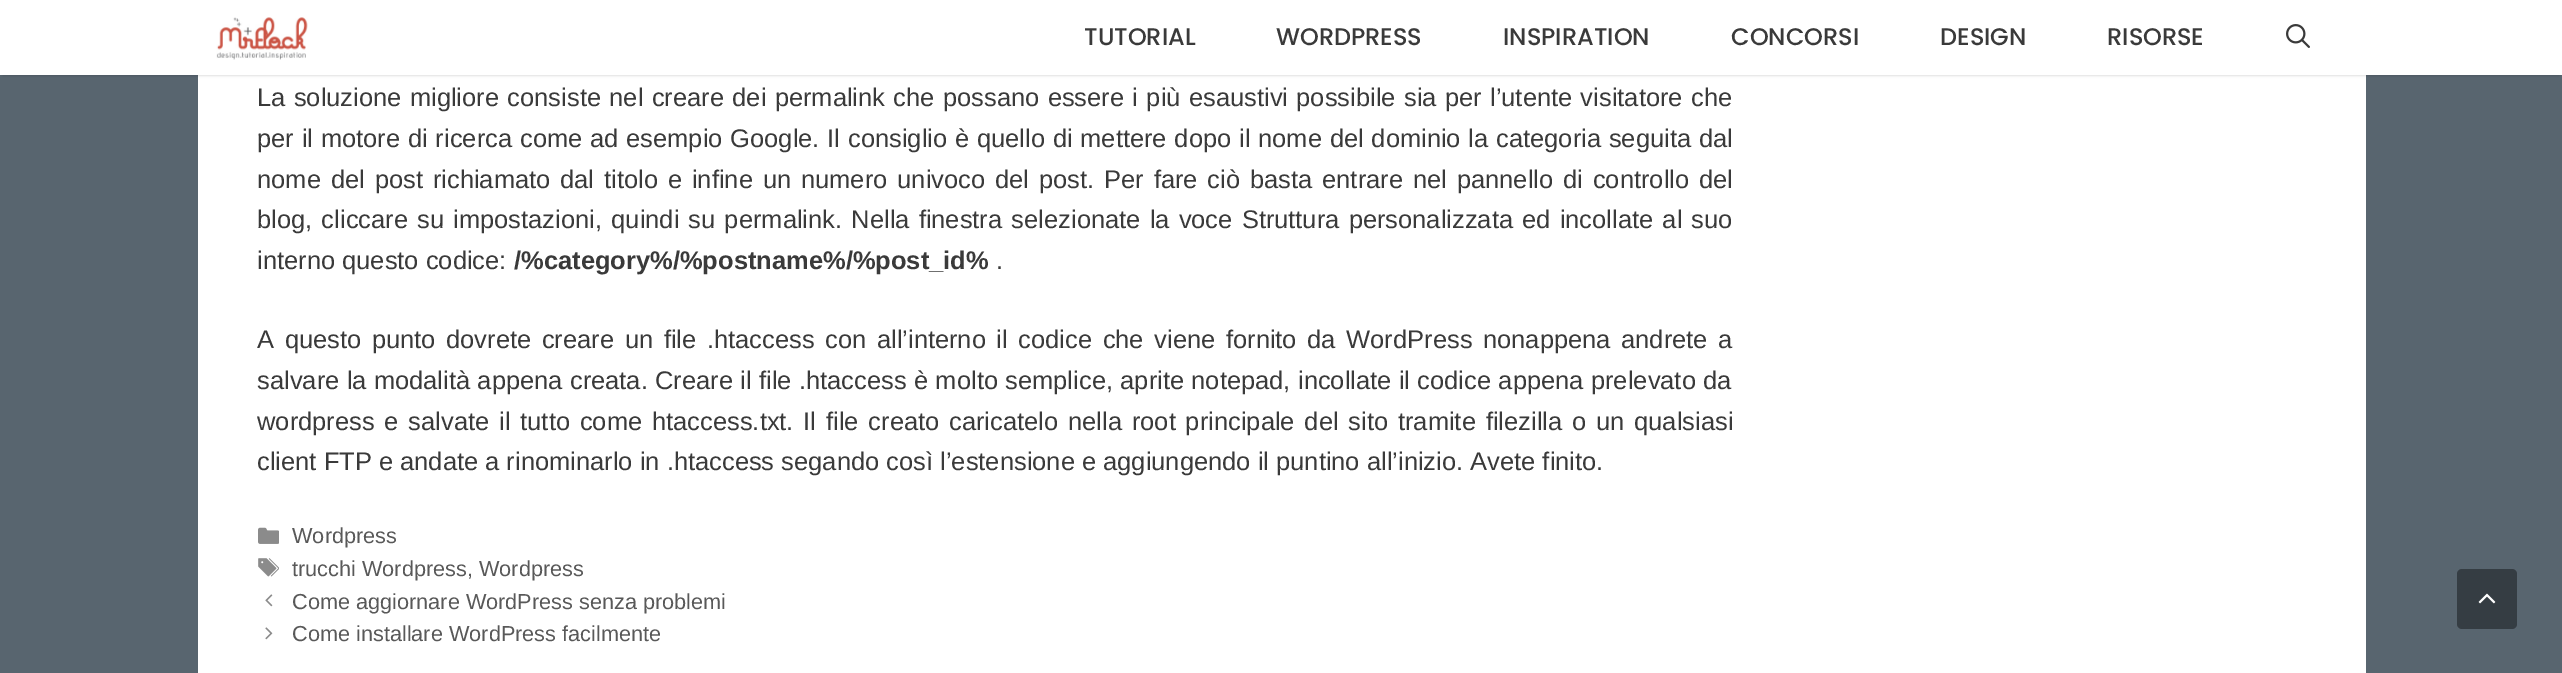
%!PS-Adobe-3.0
%%BoundingBox: 0 0 2562 673
%%LanguageLevel: 3
%%Pages: 1
%%EndComments
%%BeginProlog
/setalpha { dup .setfillconstantalpha .setstrokeconstantalpha } def
/rrect { 5 dict begin { /r /h /w /y /x } { exch def } forall
  x r add y moveto x w add y 2 copy h add r arct x w add y h add x 1 index r arct
  x y h add x y r arct x y 2 copy exch w add exch r arct closepath end } def
/softshadow { 12 dict begin { /a /b /q /h /w /y /x } { exch def } forall gsave /was 0 def
  9 -2 -9 { dup b mul 4 div /e exch def 1 sub .425 mul 2.718 exch exp 1 add a .99 .min exch div /now exch def
    1 1 now sub 1 was sub div sub setalpha /was now def
    w h .min e 2 mul add 0 gt { x e sub y e sub w e 2 mul add h e 2 mul add
      q e add b .6 mul add w h .min 2 div e add .min 0 .max rrect fill } if } for grestore end } def
/drawimage { 5 dict begin { /h /w /y /x /name } { exch def } forall
  gsave x y translate w h scale
  w h 8 [w 0 0 h 0 0] name (r) file false 3 colorimage grestore end } def
%%EndProlog
%%BeginSetup
<< /PageSize [2562 673] /PageUsesTransparency true >> setpagedevice
%%EndSetup
%%Page: 1 1
0 .pushpdf14devicefilter
0 673 translate 1 -1 scale
4 setmiterlimit
0.345 0.396 0.435 setrgbcolor
0 0 2562 673 rectfill
1 setgray
198 75 2168 598 rectfill
0 setgray
3 6 2556 69 0 1.5 0.2 softshadow
1 setgray
0 0 2562 75 rectfill
(images/1.raw) 216 17 92 43 drawimage
(images/2.raw) 2286 24 24 24 drawimage
(images/3.raw) 258 527 21 17 drawimage
(images/4.raw) 258 558 21 19 drawimage
(images/5.raw) 265 594 8 13 drawimage
(images/6.raw) 265 627 8 13 drawimage
0.208 0.239 0.263 setrgbcolor
2457 569 60 60 5 rrect fill
(images/7.raw) 2478 593 18 11 drawimage
/Poppins-Medium [24 0 0 -24 0 0] selectfont
0.227 setgray
1084 45 moveto (TUTORIAL) show
1276 45 moveto (WORDPRESS) show
1503 45 moveto (INSPIRATION) show
1731 45 moveto (CONCORSI) show
1940 45 moveto (DESIGN) show
2107 45 moveto (RISORSE) show
/LiberationSans-Regular [25.5 0 0 -25.5 0 0] selectfont
257 106 moveto 1.25 0 32 (La soluzione migliore consiste nel creare dei permalink che possano essere i più esaustivi possibile sia per l’utente visitatore che) widthshow
257 147 moveto 0.7 0 32 (per il motore di ricerca come ad esempio Google. Il consiglio è quello di mettere dopo il nome del dominio la categoria seguita dal) widthshow
257 188 moveto 2.8 0 32 (nome del post richiamato dal titolo e infine un numero univoco del post. Per fare ciò basta entrare nel pannello di controllo del) widthshow
257 228 moveto 2.1 0 32 (blog, cliccare su impostazioni, quindi su permalink. Nella finestra selezionate la voce Struttura personalizzata ed incollate al suo) widthshow
257 269 moveto (interno questo codice:) show
/LiberationSans-Bold [25.5 0 0 -25.5 0 0] selectfont
514 269 moveto (/%category%/%postname%/%post_id%) show
/LiberationSans-Regular [25.5 0 0 -25.5 0 0] selectfont
996 269 moveto (.) show
257 348 moveto 3.5 0 32 (A questo punto dovrete creare un file .htaccess con all’interno il codice che viene fornito da WordPress nonappena andrete a) widthshow
257 389 moveto 0.25 0 32 (salvare la modalità appena creata. Creare il file .htaccess è molto semplice, aprite notepad, incollate il codice appena prelevato da) widthshow
257 430 moveto 2.75 0 32 (wordpress e salvate il tutto come htaccess.txt. Il file creato caricatelo nella root principale del sito tramite filezilla o un qualsiasi) widthshow
257 470 moveto (client FTP e andate a rinominarlo in .htaccess segando così l’estensione e aggiungendo il puntino all’inizio. Avete finito.) show
/LiberationSans-Regular [21.7 0 0 -21.7 0 0] selectfont
0.349 setgray
292 543 moveto (Wordpress) show
292 576 moveto (trucchi Wordpress, Wordpress) show
292 609 moveto (Come aggiornare WordPress senza problemi) show
292 641 moveto (Come installare WordPress facilmente) show
.poppdf14devicefilter showpage
%%EOF
